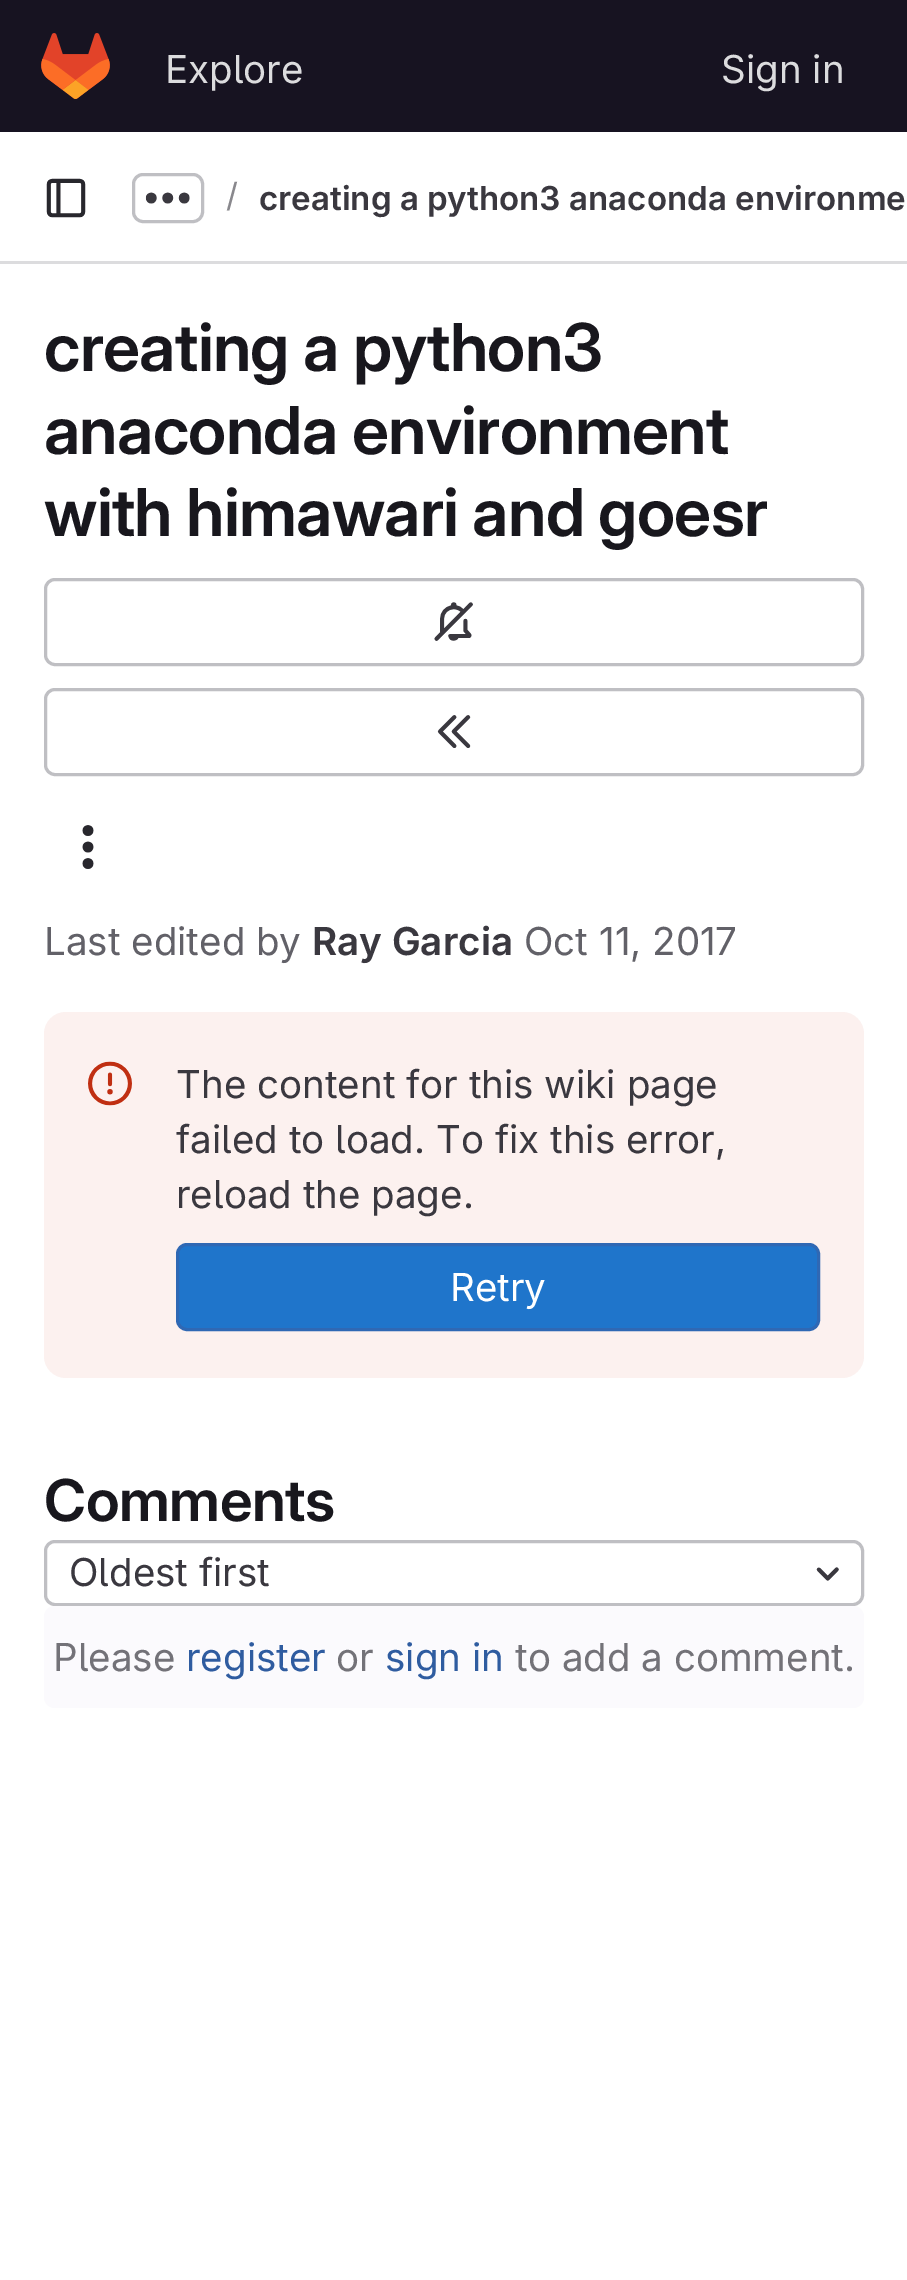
%!PS-Adobe-3.0
%%BoundingBox: 0 0 907 2280
%%LanguageLevel: 3
%%Pages: 1
%%EndComments
%%BeginProlog
/rrect { 5 dict begin { /r /h /w /y /x } { exch def } forall
  x r add y moveto x w add y 2 copy h add r arct x w add y h add x 1 index r arct
  x y h add x y r arct x y 2 copy exch w add exch r arct closepath end } def
/drawimage { 5 dict begin { /h /w /y /x /name } { exch def } forall
  gsave x y translate w h scale
  w h 8 [w 0 0 h 0 0] name (r) file false 3 colorimage grestore end } def
%%EndProlog
%%BeginSetup
<< /PageSize [907 2280] >> setpagedevice
%%EndSetup
%%Page: 1 1
0 2280 translate 1 -1 scale
4 setmiterlimit
1 setgray
0 0 907 2280 rectfill
0.09 0.075 0.129 setrgbcolor
0 0 907 132 rectfill
(images/1.raw) 41 33 69 66 drawimage
0.863 0.863 0.871 setrgbcolor
0 261 907 3 rectfill
(images/2.raw) 46 178 40 40 drawimage
0.749 0.749 0.765 setrgbcolor
3 setlinewidth
133.5 174.5 69 47 9.5 rrect stroke
(images/3.raw) 145 192 45 12 drawimage
45.5 579.5 817 85 9.5 rrect stroke
(images/4.raw) 434 602 39 39 drawimage
45.5 689.5 817 85 9.5 rrect stroke
(images/5.raw) 437 715 34 33 drawimage
(images/6.raw) 82 825 12 44 drawimage
0.988 0.945 0.937 setrgbcolor
44 1012 820 366 22 rrect fill
(images/7.raw) 88 1061 44 45 drawimage
0.122 0.459 0.796 setrgbcolor
177.5 1244.5 641 85 9.5 rrect gsave fill grestore
0.184 0.408 0.706 setrgbcolor
stroke
0.749 0.749 0.765 setrgbcolor
45.5 1541.5 817 63 9.5 rrect stroke
(images/8.raw) 816 1567 23 14 drawimage
0.984 0.98 0.992 setrgbcolor
44 1606 820 102 11 rrect fill
/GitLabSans-Regular [38.5 0 0 -38.5 0 0] selectfont
0.863 0.863 0.871 setrgbcolor
165 83 moveto (Explore) show
721 83 moveto (Sign in) show
/GitLabSans-Regular [33 0 0 -33 0 0] selectfont
0.537 0.533 0.553 setrgbcolor
226 207 moveto (/) show
/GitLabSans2-SemiBold [33 0 0 -33 0 0] selectfont
0.227 0.22 0.247 setrgbcolor
259 210 moveto (creating a python3 anaconda environme) show
/GitLabSans-SemiBold [66 0 0 -66 0 0] selectfont
0.094 0.09 0.114 setrgbcolor
44 371 moveto -0.7 0 (creating a python3) ashow
44 454 moveto -0.7 0 (anaconda environment) ashow
44 536 moveto -0.7 0 (with himawari and goesr) ashow
/GitLabSans-Regular [38.5 0 0 -38.5 0 0] selectfont
0.384 0.38 0.408 setrgbcolor
44 955 moveto (Last edited by) show
/GitLabSans2-SemiBold [38.5 0 0 -38.5 0 0] selectfont
0.227 0.22 0.247 setrgbcolor
312 955 moveto (Ray Garcia) show
/GitLabSans-Regular [38.5 0 0 -38.5 0 0] selectfont
0.384 0.38 0.408 setrgbcolor
524 955 moveto (Oct 11, 2017) show
0.227 0.22 0.247 setrgbcolor
176 1098 moveto (The content for this wiki page) show
176 1153 moveto (failed to load. To fix this error,) show
176 1208 moveto (reload the page.) show
1 setgray
450 1301 moveto (Retry) show
/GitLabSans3-SemiBold [57.75 0 0 -57.75 0 0] selectfont
0.094 0.09 0.114 setrgbcolor
44 1521 moveto -0.5 0 (Comments) ashow
/GitLabSans-Regular [38.5 0 0 -38.5 0 0] selectfont
0.227 0.22 0.247 setrgbcolor
69 1586 moveto (Oldest first) show
0.451 0.447 0.471 setrgbcolor
53 1671 moveto (Please) show
0.184 0.361 0.627 setrgbcolor
186 1671 moveto (register) show
0.451 0.447 0.471 setrgbcolor
336 1671 moveto (or) show
0.184 0.361 0.627 setrgbcolor
385 1671 moveto (sign in) show
0.451 0.447 0.471 setrgbcolor
515 1671 moveto (to add a comment.) show
showpage
%%EOF
